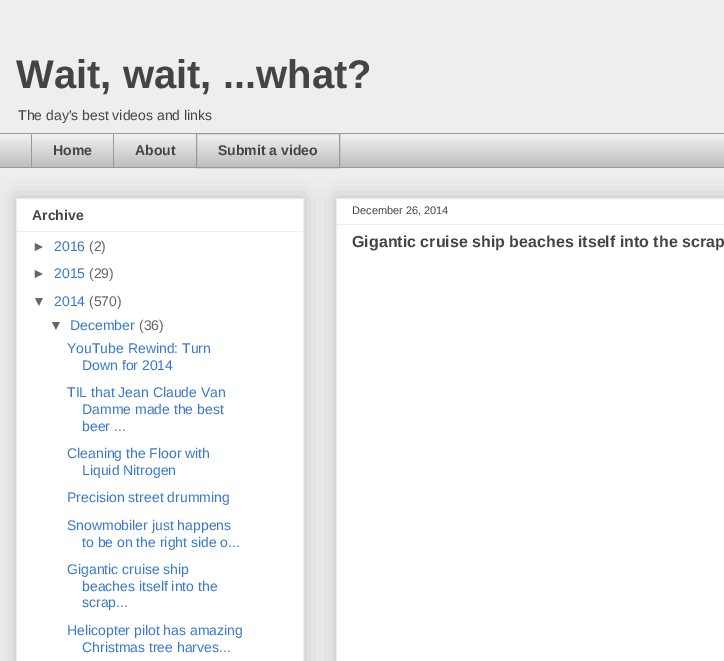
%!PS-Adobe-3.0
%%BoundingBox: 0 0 724 661
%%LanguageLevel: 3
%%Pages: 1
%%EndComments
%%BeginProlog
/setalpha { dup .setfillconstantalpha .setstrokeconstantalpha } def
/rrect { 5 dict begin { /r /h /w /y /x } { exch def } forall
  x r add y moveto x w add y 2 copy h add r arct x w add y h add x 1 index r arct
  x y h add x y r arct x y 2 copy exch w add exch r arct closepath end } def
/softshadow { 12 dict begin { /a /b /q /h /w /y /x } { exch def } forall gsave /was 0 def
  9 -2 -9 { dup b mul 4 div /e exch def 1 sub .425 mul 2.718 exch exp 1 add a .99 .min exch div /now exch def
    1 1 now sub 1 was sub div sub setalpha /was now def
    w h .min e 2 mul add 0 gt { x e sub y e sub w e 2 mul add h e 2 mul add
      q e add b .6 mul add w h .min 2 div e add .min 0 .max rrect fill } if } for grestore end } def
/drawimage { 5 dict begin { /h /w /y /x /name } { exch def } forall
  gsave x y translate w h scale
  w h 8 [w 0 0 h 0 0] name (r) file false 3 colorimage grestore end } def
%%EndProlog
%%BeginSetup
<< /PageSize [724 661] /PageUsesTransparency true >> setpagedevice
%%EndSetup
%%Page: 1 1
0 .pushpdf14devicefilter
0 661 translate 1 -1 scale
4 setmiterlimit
0.933 setgray
0 0 724 661 rectfill
(images/1.raw) 0 139 724 28 drawimage
0.6 setgray
0 133 724 1 rectfill
31 133 1 35 rectfill
113 133 1 35 rectfill
196.5 133.5 143 34 rectstroke
0 167 724 1 rectfill
0 setgray
16 198 288 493 0 10 0.2 softshadow
1 setgray
newpath 16.5 198.5 moveto 303.5 198.5 lineto 303.5 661.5 lineto 16.5 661.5 lineto closepath gsave fill grestore
0.933 setgray
stroke
17 231 286 1 rectfill
0 setgray
336 198 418 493 0 10 0.2 softshadow
1 setgray
newpath 336.5 198.5 moveto 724.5 198.5 lineto 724.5 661.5 lineto 336.5 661.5 lineto closepath gsave fill grestore
0.933 setgray
stroke
337 224 387 1 rectfill
/LiberationSans-Bold [40 0 0 -40 0 0] selectfont
0.267 setgray
16 88 moveto (Wait, wait, ...what?) show
/LiberationSans-Regular [14 0 0 -14 0 0] selectfont
18 120 moveto (The day's best videos and links) show
/LiberationSans-Bold [14 0 0 -14 0 0] selectfont
53 155 moveto (Home) show
135 155 moveto (About) show
218 155 moveto (Submit a video) show
32 220 moveto (Archive) show
/LiberationSans-Regular [14 0 0 -14 0 0] selectfont
0.4 setgray
32 251 moveto (►) show
0.216 0.471 0.804 setrgbcolor
54 251 moveto (2016) show
0.4 setgray
89 251 moveto (\(2\)) show
32 278 moveto (►) show
0.216 0.471 0.804 setrgbcolor
54 278 moveto (2015) show
0.4 setgray
89 278 moveto (\(29\)) show
32 306 moveto (▼) show
0.216 0.471 0.804 setrgbcolor
54 306 moveto (2014) show
0.4 setgray
89 306 moveto (\(570\)) show
49 330 moveto (▼) show
0.216 0.471 0.804 setrgbcolor
70 330 moveto (December) show
0.4 setgray
139 330 moveto (\(36\)) show
0.216 0.471 0.804 setrgbcolor
67 353 moveto (YouTube Rewind: Turn) show
82 370 moveto (Down for 2014) show
67 397 moveto (TIL that Jean Claude Van) show
82 414 moveto (Damme made the best) show
82 431 moveto (beer ...) show
67 458 moveto (Cleaning the Floor with) show
82 475 moveto (Liquid Nitrogen) show
67 502 moveto (Precision street drumming) show
67 530 moveto (Snowmobiler just happens) show
82 547 moveto (to be on the right side o...) show
67 574 moveto (Gigantic cruise ship) show
82 591 moveto (beaches itself into the) show
82 607 moveto (scrap...) show
67 635 moveto (Helicopter pilot has amazing) show
82 652 moveto (Christmas tree harves...) show
/LiberationSans-Regular [11 0 0 -11 0 0] selectfont
0.267 setgray
352 214 moveto (December 26, 2014) show
/LiberationSans-Bold [16 0 0 -16 0 0] selectfont
352 247 moveto (Gigantic cruise ship beaches itself into the scrap) show
.poppdf14devicefilter showpage
%%EOF
